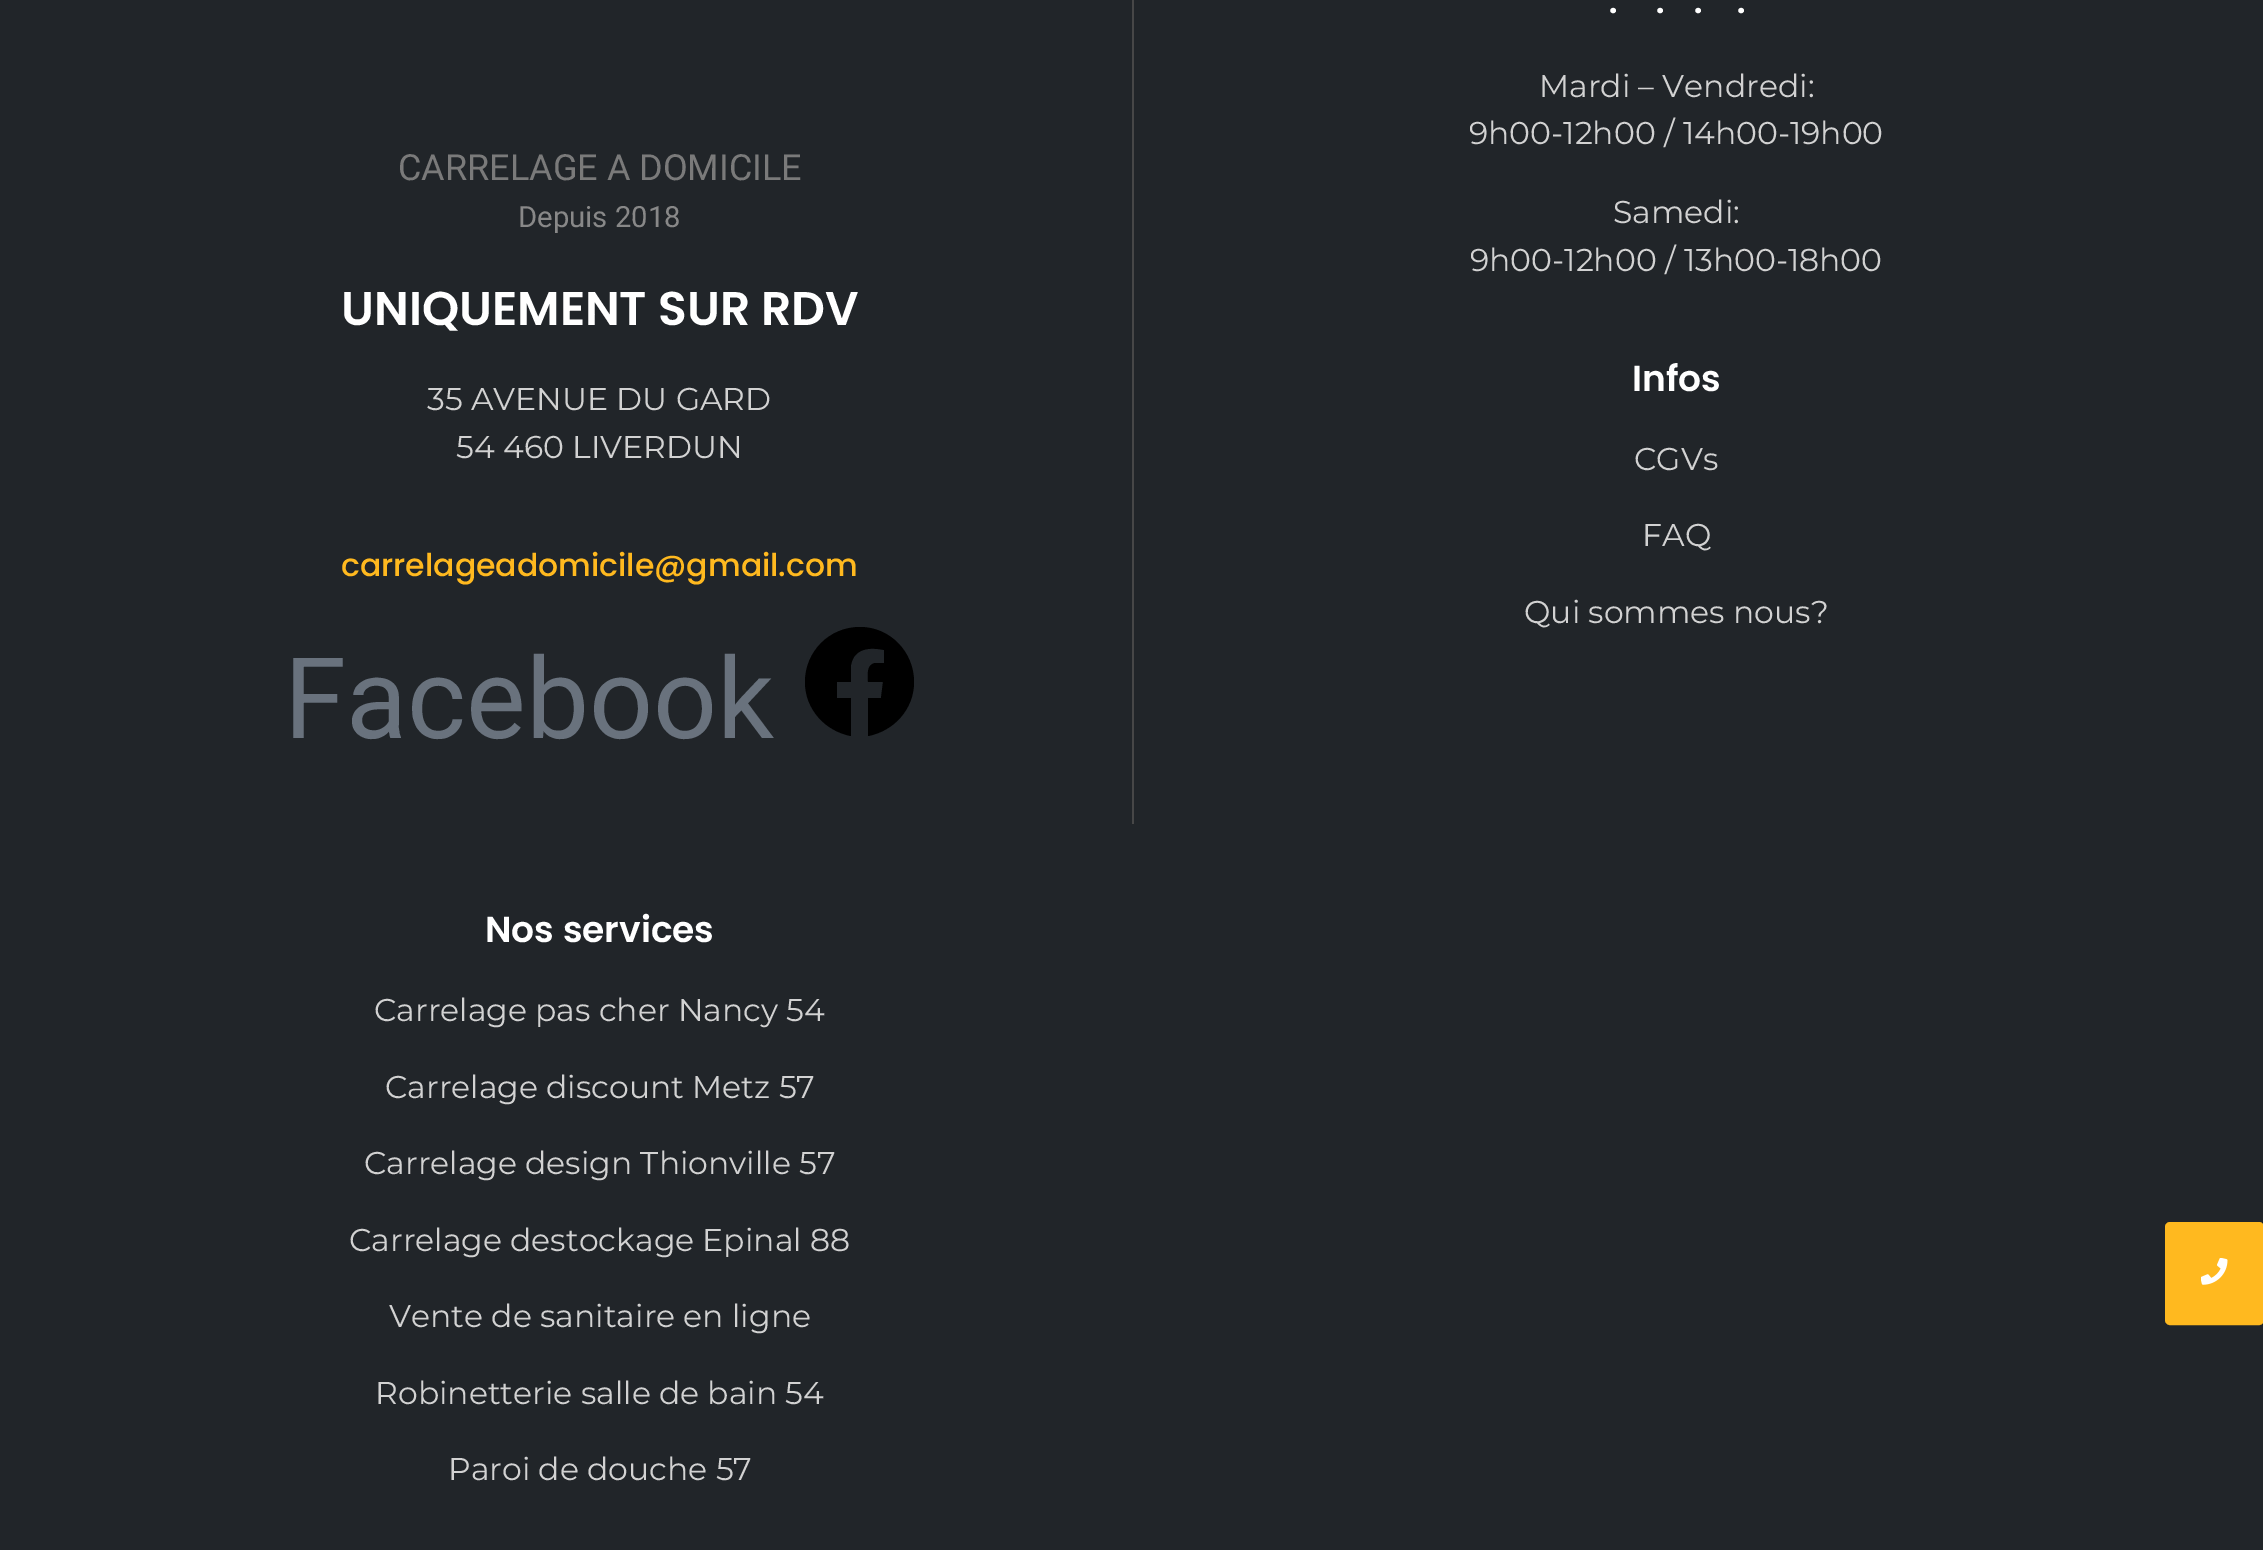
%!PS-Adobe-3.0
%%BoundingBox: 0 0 2263 1550
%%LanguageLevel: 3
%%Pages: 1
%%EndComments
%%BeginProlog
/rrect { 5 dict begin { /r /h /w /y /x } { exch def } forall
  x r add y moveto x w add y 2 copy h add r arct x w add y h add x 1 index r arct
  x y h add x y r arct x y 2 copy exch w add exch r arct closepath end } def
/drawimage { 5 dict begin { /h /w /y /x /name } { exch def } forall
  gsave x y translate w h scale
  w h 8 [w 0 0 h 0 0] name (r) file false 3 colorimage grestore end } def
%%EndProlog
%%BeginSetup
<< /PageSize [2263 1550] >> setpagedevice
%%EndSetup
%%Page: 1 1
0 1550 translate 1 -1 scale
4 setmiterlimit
0.129 0.145 0.161 setrgbcolor
0 0 2263 1550 rectfill
0 setgray
newpath 914 682 moveto 914 652 890 627 860 627 curveto 829 627 805 652 805 682 curveto 805 709 825 731 851 736 curveto 851 698 lineto 837 698 lineto 837 682 lineto 851 682 lineto 851 665 lineto 854 648 870 647 884 650 curveto 884 663 lineto 875 663 lineto 866 665 868 675 868 682 curveto 883 682 lineto 881 698 lineto 868 698 lineto 868 736 lineto 894 731 914 709 914 682 curveto closepath fill
0.278 setgray
1132 0 2 824 rectfill
1 0.725 0.122 setrgbcolor
2166 1223 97 101 4 rrect gsave fill grestore
2 setlinewidth
stroke
(images/1.raw) 2201 1258 27 27 drawimage
/Roboto-Regular [36 0 0 -36 0 0] selectfont
0.478 setgray
398 180 moveto (CARRELAGE A DOMICILE) show
/Roboto-Regular [29.25 0 0 -29.25 0 0] selectfont
0.533 setgray
518 227 moveto (Depuis 2018) show
/Poppins-SemiBold [47.25 0 0 -47.25 0 0] selectfont
1 setgray
341 325 moveto (UNIQUEMENT SUR RDV) show
/Montserrat-Regular [31.5 0 0 -31.5 0 0] selectfont
0.824 setgray
427 410 moveto (35 AVENUE DU GARD) show
456 458 moveto (54 460 LIVERDUN) show
/Poppins-Medium [31.5 0 0 -31.5 0 0] selectfont
1 0.725 0.122 setrgbcolor
341 576 moveto (carrelageadomicile@gmail.com) show
/Roboto-Regular [112.5 0 0 -112.5 0 0] selectfont
0.412 0.447 0.49 setrgbcolor
284 738 moveto (Facebook) show
/Poppins-Bold [29.25 0 0 -29.25 0 0] selectfont
1 setgray
1609 13 moveto (.) show
1656 13 moveto (.) show
1694 13 moveto (.) show
1737 13 moveto (.) show
/Montserrat-Regular [31.5 0 0 -31.5 0 0] selectfont
0.824 setgray
1539 97 moveto (Mardi – Vendredi:) show
1469 144 moveto (9h00-12h00 / 14h00-19h00) show
1613 223 moveto (Samedi:) show
1470 271 moveto (9h00-12h00 / 13h00-18h00) show
/Poppins-SemiBold [36 0 0 -36 0 0] selectfont
1 setgray
1632 391 moveto (Infos) show
/Montserrat-Regular [31.5 0 0 -31.5 0 0] selectfont
0.824 setgray
1634 470 moveto (CGVs) show
1642 546 moveto (FAQ) show
1524 623 moveto (Qui sommes nous?) show
/Poppins-SemiBold [36 0 0 -36 0 0] selectfont
1 setgray
485 942 moveto (Nos services) show
/Montserrat-Regular [31.5 0 0 -31.5 0 0] selectfont
0.824 setgray
374 1021 moveto (Carrelage pas cher Nancy 54) show
385 1098 moveto (Carrelage discount Metz 57) show
364 1174 moveto (Carrelage design Thionville 57) show
349 1251 moveto (Carrelage destockage Epinal 88) show
389 1327 moveto (Vente de sanitaire en ligne) show
375 1404 moveto (Robinetterie salle de bain 54) show
448 1480 moveto (Paroi de douche 57) show
showpage
%%EOF
